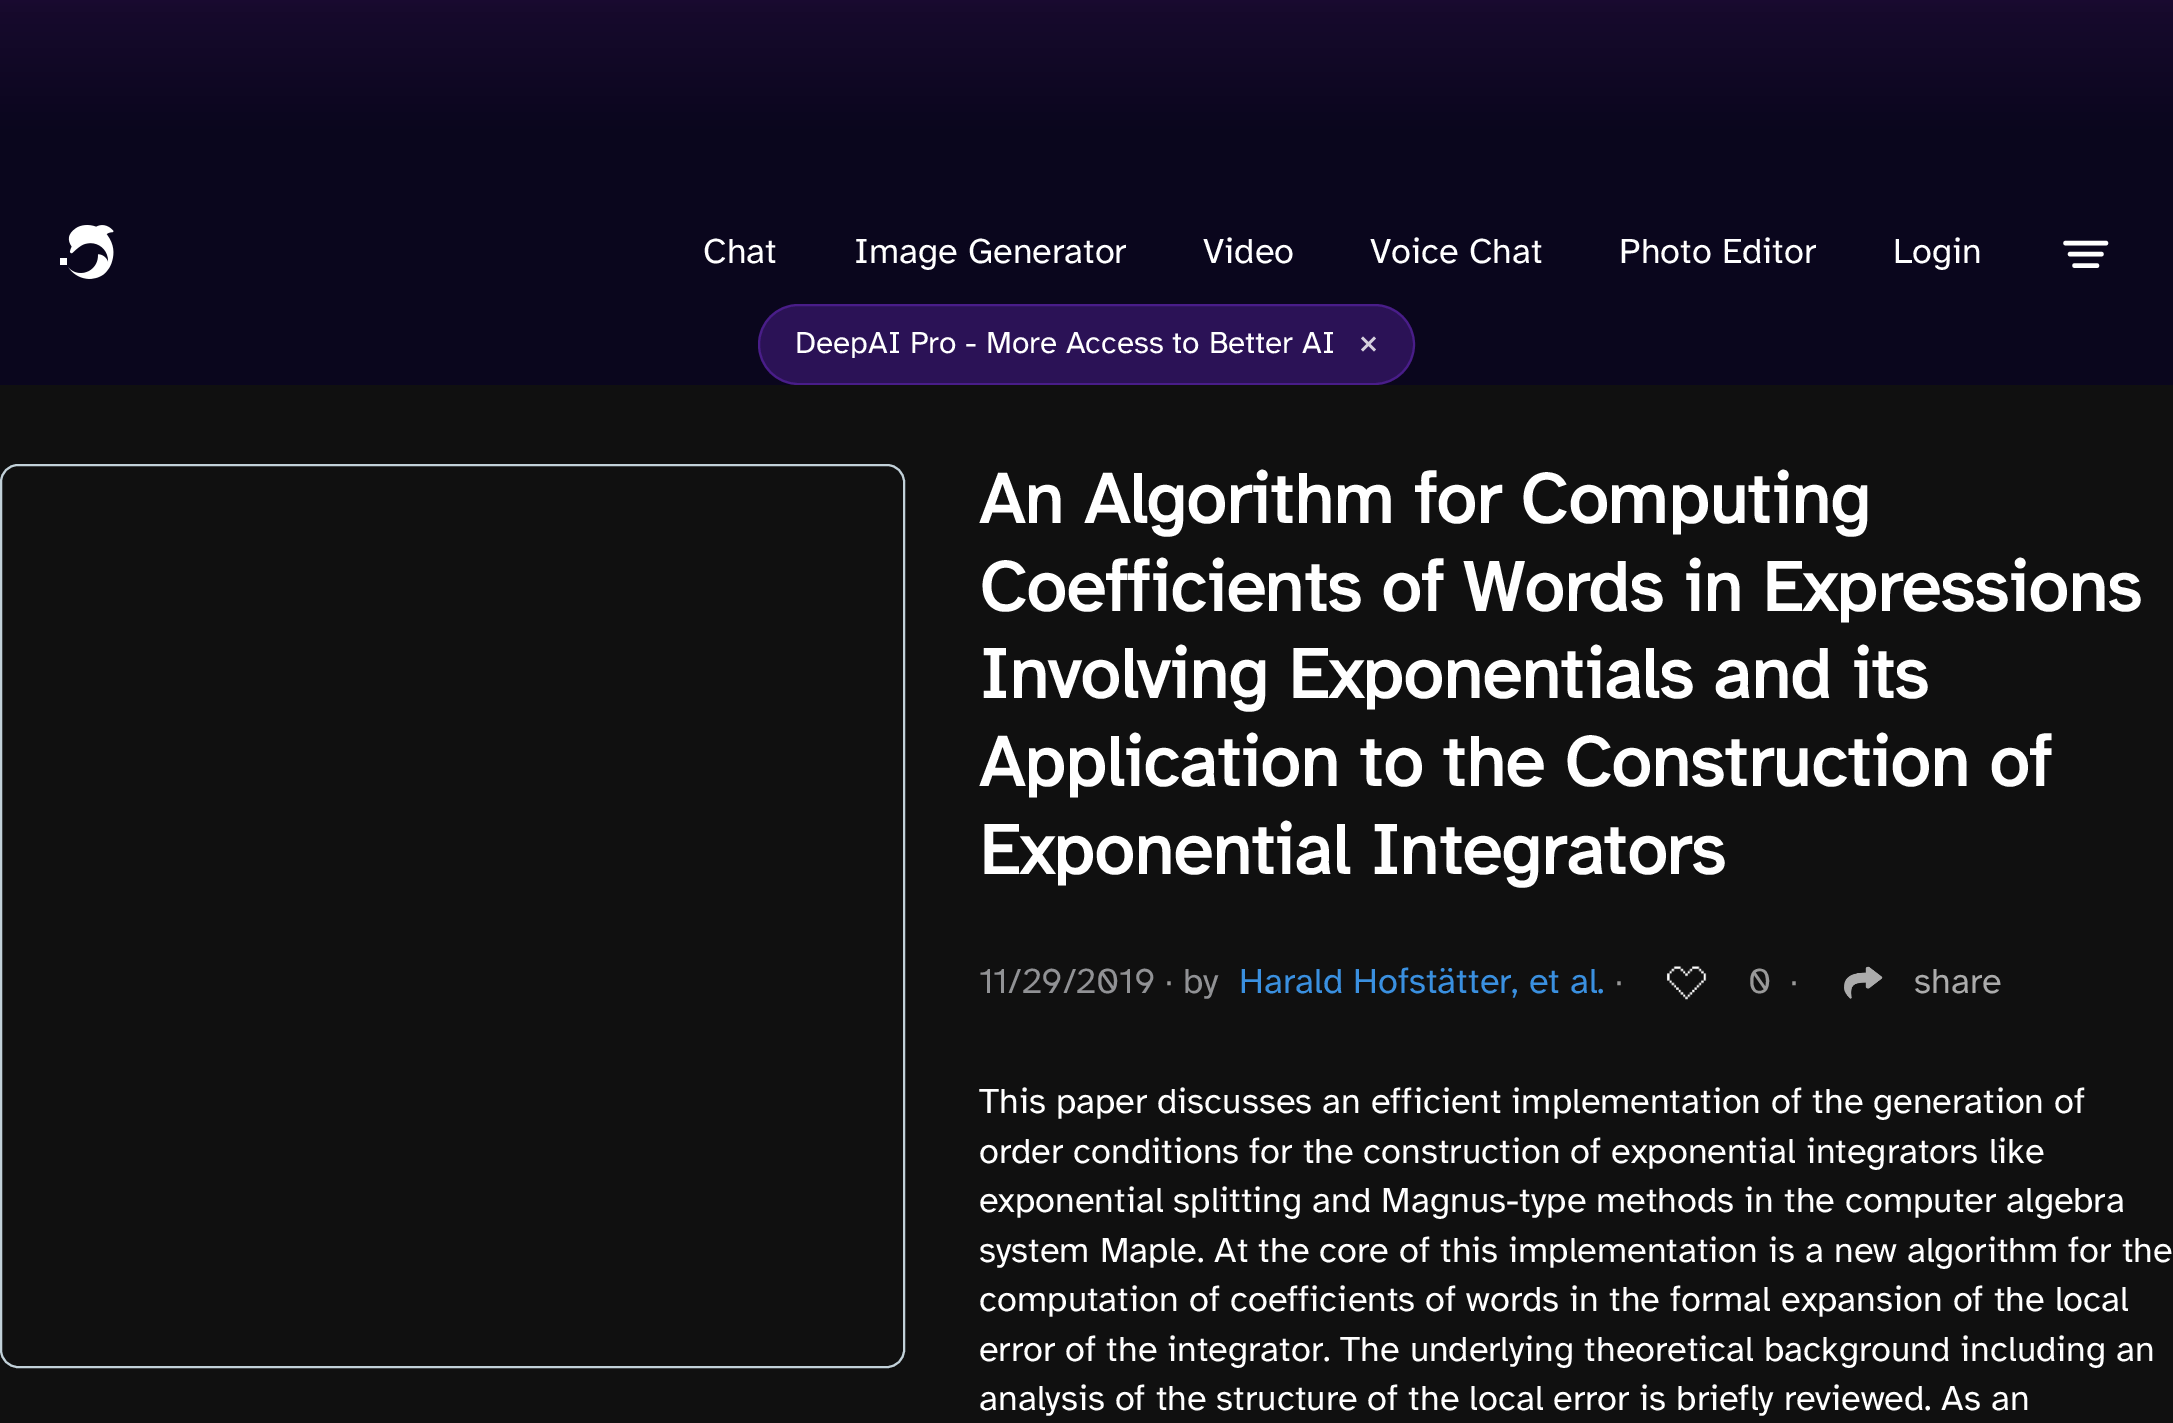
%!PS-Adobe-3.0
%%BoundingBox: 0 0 2173 1423
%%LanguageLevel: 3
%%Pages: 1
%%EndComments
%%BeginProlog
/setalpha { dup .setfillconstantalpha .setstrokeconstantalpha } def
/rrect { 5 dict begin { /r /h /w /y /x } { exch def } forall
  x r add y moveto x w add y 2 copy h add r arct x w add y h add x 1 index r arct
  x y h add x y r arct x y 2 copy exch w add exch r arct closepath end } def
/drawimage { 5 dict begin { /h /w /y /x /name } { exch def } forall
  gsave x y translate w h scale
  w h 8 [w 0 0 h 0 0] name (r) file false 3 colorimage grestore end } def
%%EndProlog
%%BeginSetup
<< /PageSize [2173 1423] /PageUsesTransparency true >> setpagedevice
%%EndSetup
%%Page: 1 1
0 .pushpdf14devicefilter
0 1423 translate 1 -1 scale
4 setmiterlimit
1 setgray
0 0 2173 1423 rectfill
gsave newpath 0 0 moveto 2173 0 lineto 2173 385 lineto 0 385 lineto closepath clip newpath
<< /ShadingType 2 /ColorSpace /DeviceRGB /Coords [1087 -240 1087 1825] /Extend [true true] /Function << /FunctionType 3 /Domain [0 1] /Functions [<< /FunctionType 2 /Domain [0 1] /C0 [0.467 0.161 0.667] /C1 [0.09 0.039 0.176] /N 1 >> << /FunctionType 2 /Domain [0 1] /C0 [0.09 0.039 0.176] /C1 [0.039 0.024 0.114] /N 1 >> << /FunctionType 2 /Domain [0 1] /C0 [0.039 0.024 0.114] /C1 [0.039 0.024 0.118] /N 1 >> << /FunctionType 2 /Domain [0 1] /C0 [0.039 0.024 0.118] /C1 [0.004 0.012 0.067] /N 1 >> << /FunctionType 2 /Domain [0 1] /C0 [0.004 0.012 0.067] /C1 [0.004 0.012 0.067] /N 1 >>] /Bounds [0.12 0.18 0.44 0.99] /Encode [0 1 0 1 0 1 0 1 0 1] >> >> shfill grestore
(images/1.raw) 60 225 54 54 drawimage
4.5 setlinewidth
1 setlinecap
newpath 2065.5 243 moveto 2106 243 lineto 2070 254 moveto 2101.5 254 lineto 2074.5 265.5 moveto 2097 265.5 lineto stroke
0.169 0.071 0.337 setrgbcolor
758 304 657 81 40.5 rrect fill
0.3 setalpha
0.561 0.216 1 setrgbcolor
2 setlinewidth
0 setlinecap
759 305 655 79 39.5 rrect stroke
1 setalpha
0.063 setgray
0 385 2173 1038 rectfill
0.761 0.82 0.851 setrgbcolor
1 465 903 902 17 rrect stroke
(images/2.raw) 1666 966 41 34 drawimage
(images/3.raw) 1844 966 39 33 drawimage
/AtkinsonHyperlegible-Regular [36 0 0 -36 0 0] selectfont
1 setgray
703 263 moveto (Chat) show
854 263 moveto (Image Generator) show
1203 263 moveto (Video) show
1370 263 moveto (Voice Chat) show
1619 263 moveto (Photo Editor) show
1893 263 moveto (Login) show
/AtkinsonHyperlegible-Regular [31.5 0 0 -31.5 0 0] selectfont
795 353 moveto (DeepAI Pro - More Access to Better AI) show
/AtkinsonHyperlegible-Regular [36 0 0 -36 0 0] selectfont
0.835 0.816 0.867 setrgbcolor
1359 353 moveto (×) show
/AtkinsonHyperlegible-Bold [72 0 0 -72 0 0] selectfont
1 setgray
979 523 moveto (An Algorithm for Computing) show
979 611 moveto (Coefficients of Words in Expressions) show
979 698 moveto (Involving Exponentials and its) show
979 786 moveto (Application to the Construction of) show
979 874 moveto (Exponential Integrators) show
/AtkinsonHyperlegible-Regular [36 0 0 -36 0 0] selectfont
0.569 0.573 0.584 setrgbcolor
979 993 moveto (11/29/2019) show
/LiberationSans-Regular [36 0 0 -36 0 0] selectfont
0.6 setgray
1164 993 moveto (∙) show
/AtkinsonHyperlegible-Regular [36 0 0 -36 0 0] selectfont
0.569 0.573 0.584 setrgbcolor
1183 993 moveto (by) show
0.227 0.565 0.878 setrgbcolor
1239 993 moveto (Harald Hofstätter, et al.) show
/LiberationSans-Regular [36 0 0 -36 0 0] selectfont
0.6 setgray
1614 993 moveto (∙) show
/AtkinsonHyperlegible-Regular [36 0 0 -36 0 0] selectfont
1748 993 moveto (0) show
/LiberationSans-Regular [36 0 0 -36 0 0] selectfont
1789 993 moveto (∙) show
/AtkinsonHyperlegible-Regular [36 0 0 -36 0 0] selectfont
0.671 setgray
1914 993 moveto (share) show
1 setgray
979 1113 moveto (This paper discusses an efficient implementation of the generation of) show
979 1163 moveto (order conditions for the construction of exponential integrators like) show
979 1212 moveto (exponential splitting and Magnus-type methods in the computer algebra) show
979 1262 moveto (system Maple. At the core of this implementation is a new algorithm for the) show
979 1311 moveto (computation of coefficients of words in the formal expansion of the local) show
979 1361 moveto (error of the integrator. The underlying theoretical background including an) show
979 1410 moveto (analysis of the structure of the local error is briefly reviewed. As an) show
.poppdf14devicefilter showpage
%%EOF
